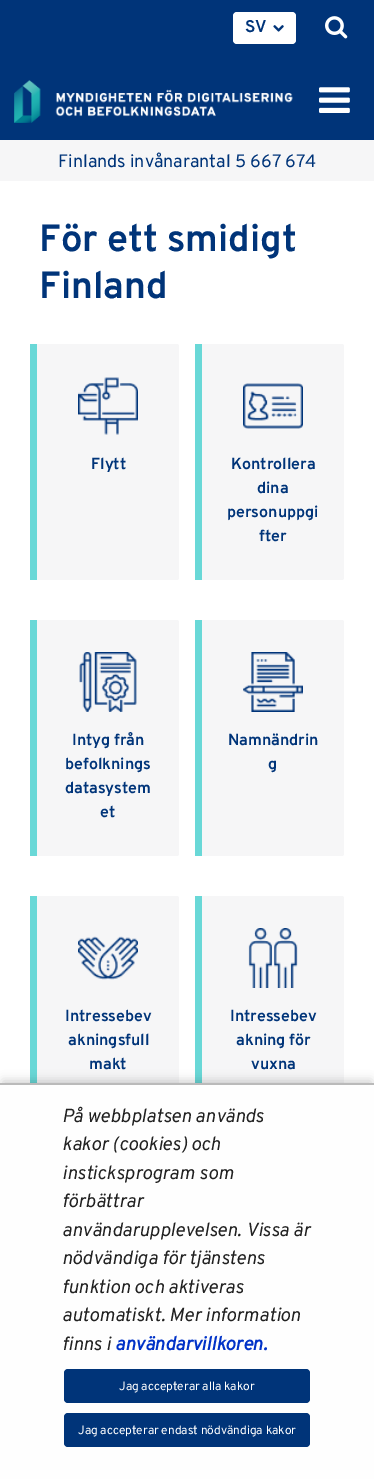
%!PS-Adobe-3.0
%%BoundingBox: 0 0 374 1479
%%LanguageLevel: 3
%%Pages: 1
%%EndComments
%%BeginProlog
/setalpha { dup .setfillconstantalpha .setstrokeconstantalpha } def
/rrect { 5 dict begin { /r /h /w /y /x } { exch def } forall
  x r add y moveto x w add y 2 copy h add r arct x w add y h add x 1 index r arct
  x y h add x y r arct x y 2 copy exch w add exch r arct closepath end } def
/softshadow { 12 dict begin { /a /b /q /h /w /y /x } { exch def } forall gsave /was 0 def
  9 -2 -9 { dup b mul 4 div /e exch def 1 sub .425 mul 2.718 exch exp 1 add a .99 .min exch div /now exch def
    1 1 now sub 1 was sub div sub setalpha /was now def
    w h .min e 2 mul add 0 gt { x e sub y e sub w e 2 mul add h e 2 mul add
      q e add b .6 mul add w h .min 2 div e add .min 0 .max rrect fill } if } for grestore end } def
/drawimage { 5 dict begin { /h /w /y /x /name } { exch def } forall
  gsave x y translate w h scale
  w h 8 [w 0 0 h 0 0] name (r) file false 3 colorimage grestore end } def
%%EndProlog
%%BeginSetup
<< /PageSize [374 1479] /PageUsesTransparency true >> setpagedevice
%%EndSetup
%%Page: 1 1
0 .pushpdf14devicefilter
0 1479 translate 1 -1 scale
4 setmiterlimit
0 0.204 0.475 setrgbcolor
0 0 374 1479 rectfill
1 setgray
233 12 63 32 4 rrect fill
(images/1.raw) 273 25 11 7 drawimage
(images/2.raw) 325 16 23 23 drawimage
(images/3.raw) 14 80 279 43 drawimage
(images/4.raw) 319 87 31 26 drawimage
0.965 0.965 0.969 setrgbcolor
0 140 374 41 rectfill
1 setgray
0 181 374 902 rectfill
0.965 0.965 0.969 setrgbcolor
newpath 30 344 moveto 177 344 lineto 178 344 179 345 179 346 curveto 179 578 lineto 179 579 178 580 177 580 curveto 30 580 lineto closepath fill
0.412 0.847 0.843 setrgbcolor
30 344 7 236 rectfill
(images/5.raw) 78 377 60 58 drawimage
0.965 0.965 0.969 setrgbcolor
newpath 195 344 moveto 342 344 lineto 343 344 344 345 344 346 curveto 344 578 lineto 344 579 343 580 342 580 curveto 195 580 lineto closepath fill
0.412 0.847 0.843 setrgbcolor
195 344 7 236 rectfill
(images/6.raw) 243 383 60 46 drawimage
0.965 0.965 0.969 setrgbcolor
newpath 30 620 moveto 177 620 lineto 178 620 179 621 179 622 curveto 179 854 lineto 179 855 178 856 177 856 curveto 30 856 lineto closepath fill
0.412 0.847 0.843 setrgbcolor
30 620 7 236 rectfill
(images/7.raw) 79 652 58 60 drawimage
0.965 0.965 0.969 setrgbcolor
newpath 195 620 moveto 342 620 lineto 343 620 344 621 344 622 curveto 344 854 lineto 344 855 343 856 342 856 curveto 195 856 lineto closepath fill
0.412 0.847 0.843 setrgbcolor
195 620 7 236 rectfill
(images/8.raw) 243 652 60 60 drawimage
0.965 0.965 0.969 setrgbcolor
newpath 30 896 moveto 177 896 lineto 178 896 179 897 179 898 curveto 179 1106 lineto 179 1107 178 1108 177 1108 curveto 30 1108 lineto closepath fill
0.412 0.847 0.843 setrgbcolor
30 896 7 187 rectfill
(images/9.raw) 78 936 60 44 drawimage
0.965 0.965 0.969 setrgbcolor
newpath 195 896 moveto 342 896 lineto 343 896 344 897 344 898 curveto 344 1106 lineto 344 1107 343 1108 342 1108 curveto 195 1108 lineto closepath fill
0.412 0.847 0.843 setrgbcolor
195 896 7 187 rectfill
(images/10.raw) 248 928 50 60 drawimage
0 setgray
3 1081 368 390 0 5 0.2 softshadow
0.996 setgray
0 1085 374 394 rectfill
0.729 setgray
0 1083 374 2 rectfill
0 0.204 0.475 setrgbcolor
64 1369 246 34 4 rrect fill
64 1413 246 34 4 rrect fill
/Overpass-Bold [17 0 0 -17 0 0] selectfont
245 32 moveto (SV) show
/Overpass-Regular [18 0 0 -18 0 0] selectfont
58 167 moveto (Finlands invånarantal 5 667 674) show
/Overpass-Bold [38 0 0 -38 0 0] selectfont
39 251 moveto (För ett smidigt) show
39 298 moveto (Finland) show
/Overpass-Bold [16 0 0 -16 0 0] selectfont
91 469 moveto (Flytt) show
231 469 moveto (Kontrollera) show
257 493 moveto (dina) show
227 517 moveto (personuppgi) show
259 541 moveto (fter) show
72 745 moveto (Intyg från) show
65 769 moveto (befolknings) show
65 793 moveto (datasystem) show
100 817 moveto (et) show
228 745 moveto (Namnändrin) show
268 769 moveto (g) show
65 1021 moveto (Intressebev) show
68 1045 moveto (akningsfull) show
89 1069 moveto (makt) show
230 1021 moveto (Intressebev) show
236 1045 moveto (akning för) show
251 1069 moveto (vuxna) show
/Overpass-Italic [19 0 0 -19 0 0] selectfont
0.129 setgray
62 1122 moveto (På webbplatsen används) show
62 1150 moveto (kakor \(cookies\) och) show
62 1179 moveto (insticksprogram som) show
62 1207 moveto (förbättrar) show
62 1236 moveto (användarupplevelsen. Vissa är) show
62 1264 moveto (nödvändiga för tjänstens) show
62 1293 moveto (funktion och aktiveras) show
62 1321 moveto (automatiskt. Mer information) show
62 1350 moveto (finns i) show
/Overpass-BoldItalic [19 0 0 -19 0 0] selectfont
0 0.196 0.784 setrgbcolor
115 1350 moveto (användarvillkoren.) show
/Overpass-Regular [12 0 0 -12 0 0] selectfont
1 setgray
119 1390 moveto (Jag accepterar alla kakor) show
78 1434 moveto (Jag accepterar endast nödvändiga kakor) show
.poppdf14devicefilter showpage
%%EOF
